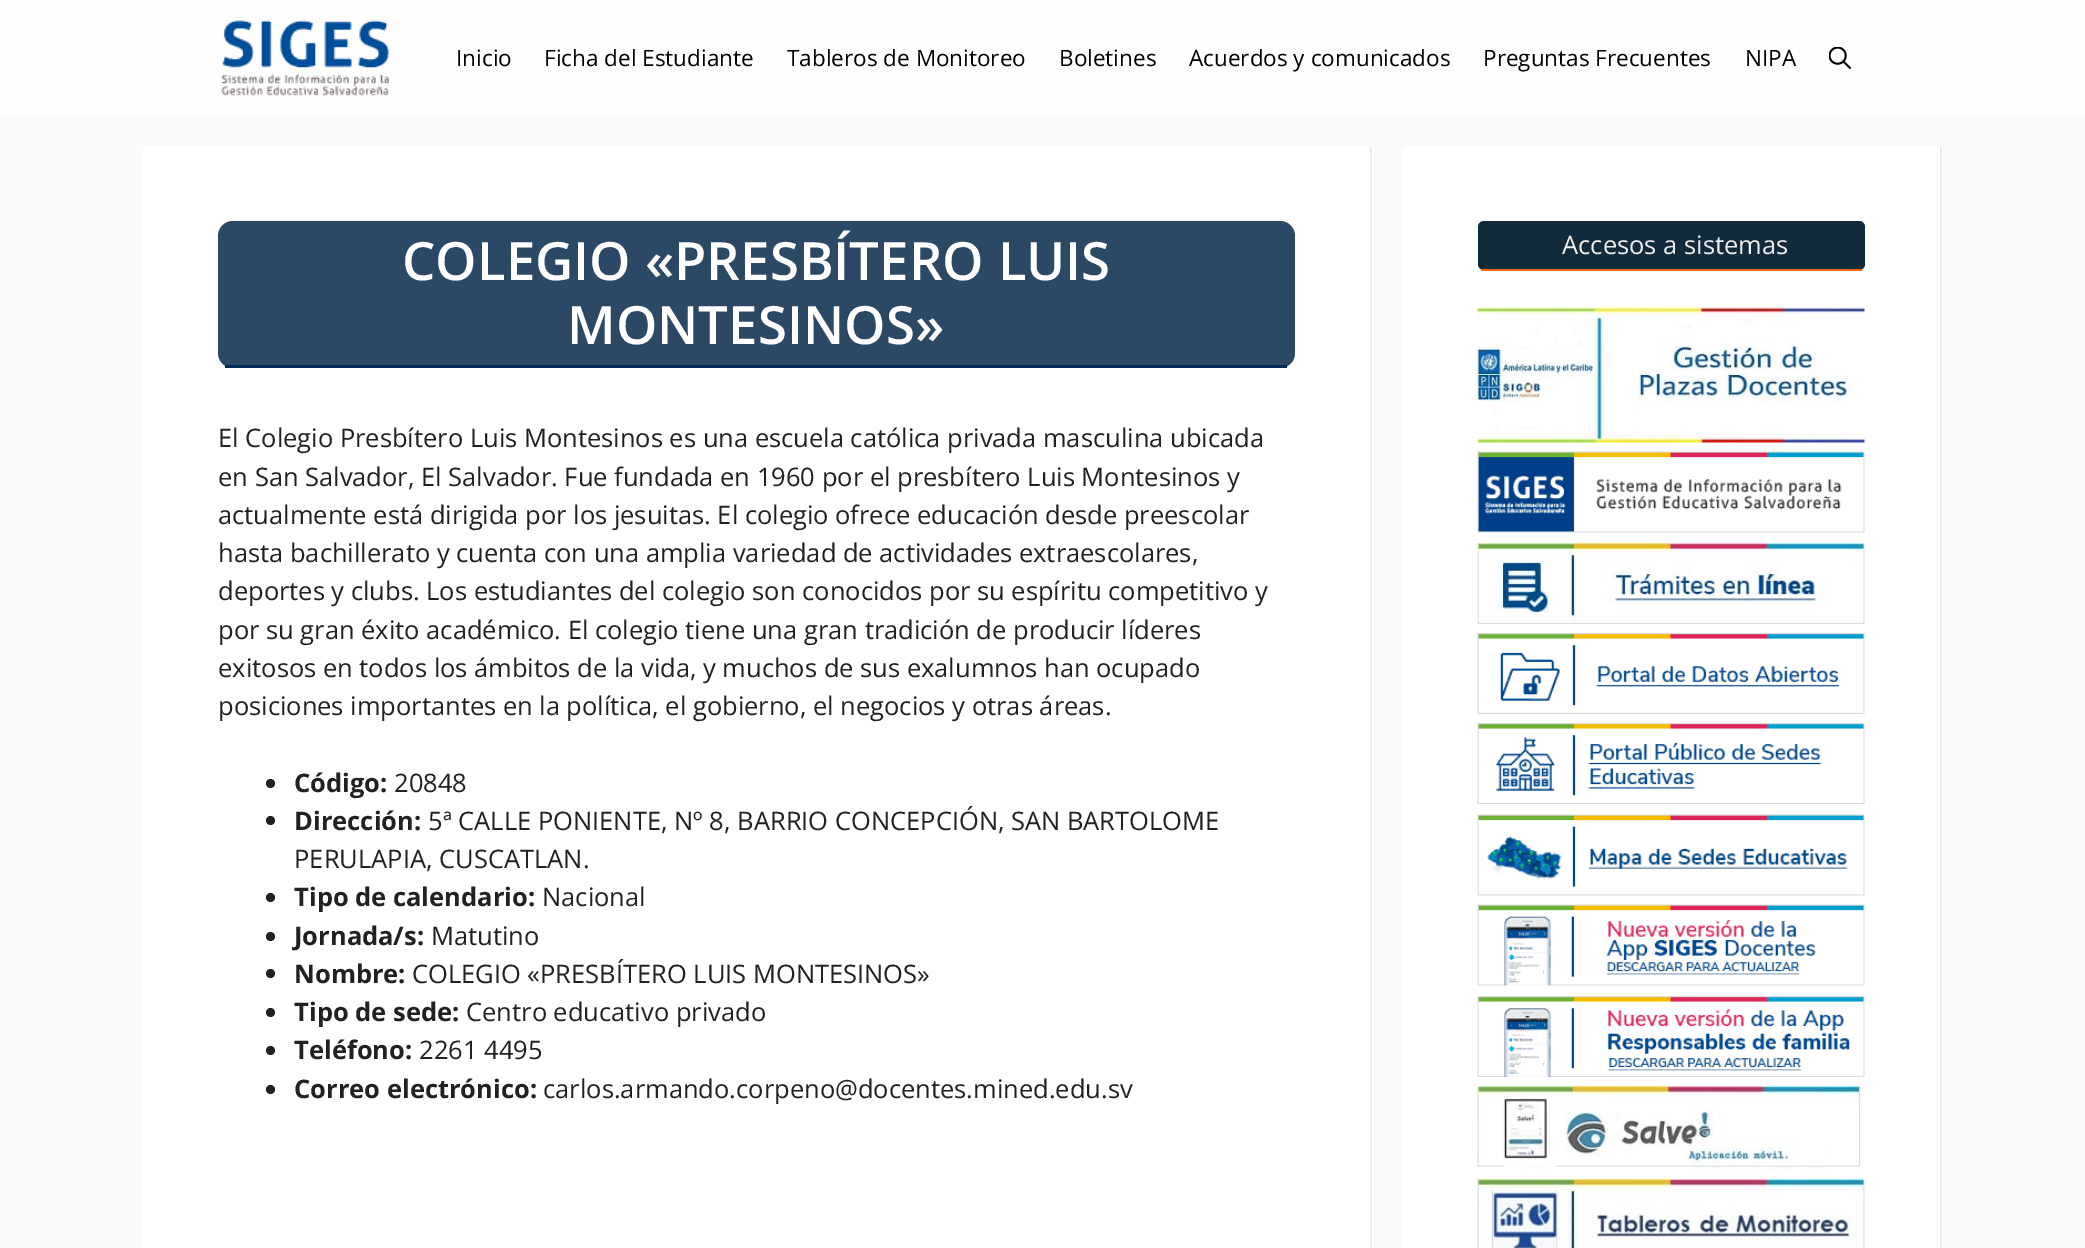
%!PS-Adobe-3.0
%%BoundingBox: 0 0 2085 1248
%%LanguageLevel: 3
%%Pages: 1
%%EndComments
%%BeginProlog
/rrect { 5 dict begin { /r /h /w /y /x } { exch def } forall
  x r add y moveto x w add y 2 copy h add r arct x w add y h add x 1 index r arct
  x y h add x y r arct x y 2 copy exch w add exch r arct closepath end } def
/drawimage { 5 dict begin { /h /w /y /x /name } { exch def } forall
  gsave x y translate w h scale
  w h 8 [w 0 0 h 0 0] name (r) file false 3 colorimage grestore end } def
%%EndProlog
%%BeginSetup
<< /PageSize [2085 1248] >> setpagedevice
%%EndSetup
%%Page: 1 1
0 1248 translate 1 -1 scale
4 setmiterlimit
0.98 setgray
0 0 2085 1248 rectfill
1 0.996 0.996 setrgbcolor
0 0 2085 116 rectfill
(images/1.raw) 221 20 168 76 drawimage
(images/2.raw) 1829 47 22 22 drawimage
1 setgray
143 146 1230 1102 rectfill
0.929 setgray
newpath 1372 146 moveto 1372 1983 lineto 1370 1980 lineto 1370 146 lineto closepath fill
0.169 0.282 0.396 setrgbcolor
218 221 1077 147 15 rrect fill
0 0.169 0.357 setrgbcolor
225 365 1062 3 rectfill
0.129 setgray
newpath 270.5 783.5 4.5 0 360 arc closepath fill
newpath 270.5 820.5 4.5 0 360 arc closepath fill
newpath 270.5 897.5 4.5 0 360 arc closepath fill
newpath 270.5 936.5 4.5 0 360 arc closepath fill
newpath 270.5 973.5 4.5 0 360 arc closepath fill
newpath 270.5 1012.5 4.5 0 360 arc closepath fill
newpath 270.5 1050.5 4.5 0 360 arc closepath fill
newpath 270.5 1089.5 4.5 0 360 arc closepath fill
1 setgray
1403 146 540 1102 rectfill
0.929 setgray
newpath 1942 146 moveto 1942 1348 lineto 1940 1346 lineto 1940 146 lineto closepath fill
0.067 0.169 0.235 setrgbcolor
1478 221 387 49 6 rrect fill
0.965 0.42 0.055 setrgbcolor
1481 269 381 2 rectfill
(images/3.raw) 1477 307 388 136 drawimage
(images/4.raw) 1477 451 388 82 drawimage
(images/5.raw) 1477 543 388 81 drawimage
(images/6.raw) 1477 633 388 81 drawimage
(images/7.raw) 1477 723 388 81 drawimage
(images/8.raw) 1477 814 388 82 drawimage
(images/9.raw) 1477 904 388 82 drawimage
(images/10.raw) 1477 996 388 81 drawimage
(images/11.raw) 1477 1086 387 84 drawimage
(images/12.raw) 1477 1179 388 69 drawimage
/OpenSans-Regular [22.5 0 0 -22.5 0 0] selectfont
0 setgray
456 66 moveto (Inicio) show
544 66 moveto (Ficha del Estudiante) show
787 66 moveto (Tableros de Monitoreo) show
1059 66 moveto (Boletines) show
1189 66 moveto (Acuerdos y comunicados) show
1483 66 moveto (Preguntas Frecuentes) show
1745 66 moveto (NIPA) show
/OpenSans-SemiBold [52.75 0 0 -52.75 0 0] selectfont
1 setgray
402 280 moveto (COLEGIO «PRESBÍTERO LUIS) show
567 344 moveto (MONTESINOS») show
/OpenSans-Regular [25.5 0 0 -25.5 0 0] selectfont
0.129 setgray
218 447 moveto (El Colegio Presbítero Luis Montesinos es una escuela católica privada masculina ubicada) show
218 486 moveto (en San Salvador, El Salvador. Fue fundada en 1960 por el presbítero Luis Montesinos y) show
218 524 moveto (actualmente está dirigida por los jesuitas. El colegio ofrece educación desde preescolar) show
218 562 moveto (hasta bachillerato y cuenta con una amplia variedad de actividades extraescolares,) show
218 600 moveto (deportes y clubs. Los estudiantes del colegio son conocidos por su espíritu competitivo y) show
218 639 moveto (por su gran éxito académico. El colegio tiene una gran tradición de producir líderes) show
218 677 moveto (exitosos en todos los ámbitos de la vida, y muchos de sus exalumnos han ocupado) show
218 715 moveto (posiciones importantes en la política, el gobierno, el negocios y otras áreas.) show
/OpenSans-Bold [25.5 0 0 -25.5 0 0] selectfont
294 792 moveto (Código:) show
/OpenSans-Regular [25.5 0 0 -25.5 0 0] selectfont
394 792 moveto (20848) show
/OpenSans-Bold [25.5 0 0 -25.5 0 0] selectfont
294 830 moveto (Dirección:) show
/OpenSans-Regular [25.5 0 0 -25.5 0 0] selectfont
428 830 moveto (5ª CALLE PONIENTE, Nº 8, BARRIO CONCEPCIÓN, SAN BARTOLOME) show
294 868 moveto (PERULAPIA, CUSCATLAN.) show
/OpenSans-Bold [25.5 0 0 -25.5 0 0] selectfont
294 906 moveto (Tipo de calendario:) show
/OpenSans-Regular [25.5 0 0 -25.5 0 0] selectfont
542 906 moveto (Nacional) show
/OpenSans-Bold [25.5 0 0 -25.5 0 0] selectfont
294 945 moveto (Jornada/s:) show
/OpenSans-Regular [25.5 0 0 -25.5 0 0] selectfont
431 945 moveto (Matutino) show
/OpenSans-Bold [25.5 0 0 -25.5 0 0] selectfont
294 983 moveto (Nombre:) show
/OpenSans-Regular [25.5 0 0 -25.5 0 0] selectfont
412 983 moveto (COLEGIO «PRESBÍTERO LUIS MONTESINOS») show
/OpenSans-Bold [25.5 0 0 -25.5 0 0] selectfont
294 1021 moveto (Tipo de sede:) show
/OpenSans-Regular [25.5 0 0 -25.5 0 0] selectfont
466 1021 moveto (Centro educativo privado) show
/OpenSans-Bold [25.5 0 0 -25.5 0 0] selectfont
294 1059 moveto (Teléfono:) show
/OpenSans-Regular [25.5 0 0 -25.5 0 0] selectfont
419 1059 moveto (2261 4495) show
/OpenSans-Bold [25.5 0 0 -25.5 0 0] selectfont
294 1098 moveto (Correo electrónico:) show
/OpenSans-Regular [25.5 0 0 -25.5 0 0] selectfont
543 1098 moveto (carlos.armando.corpeno@docentes.mined.edu.sv) show
0.937 setgray
1562 254 moveto (Accesos a sistemas) show
showpage
%%EOF
